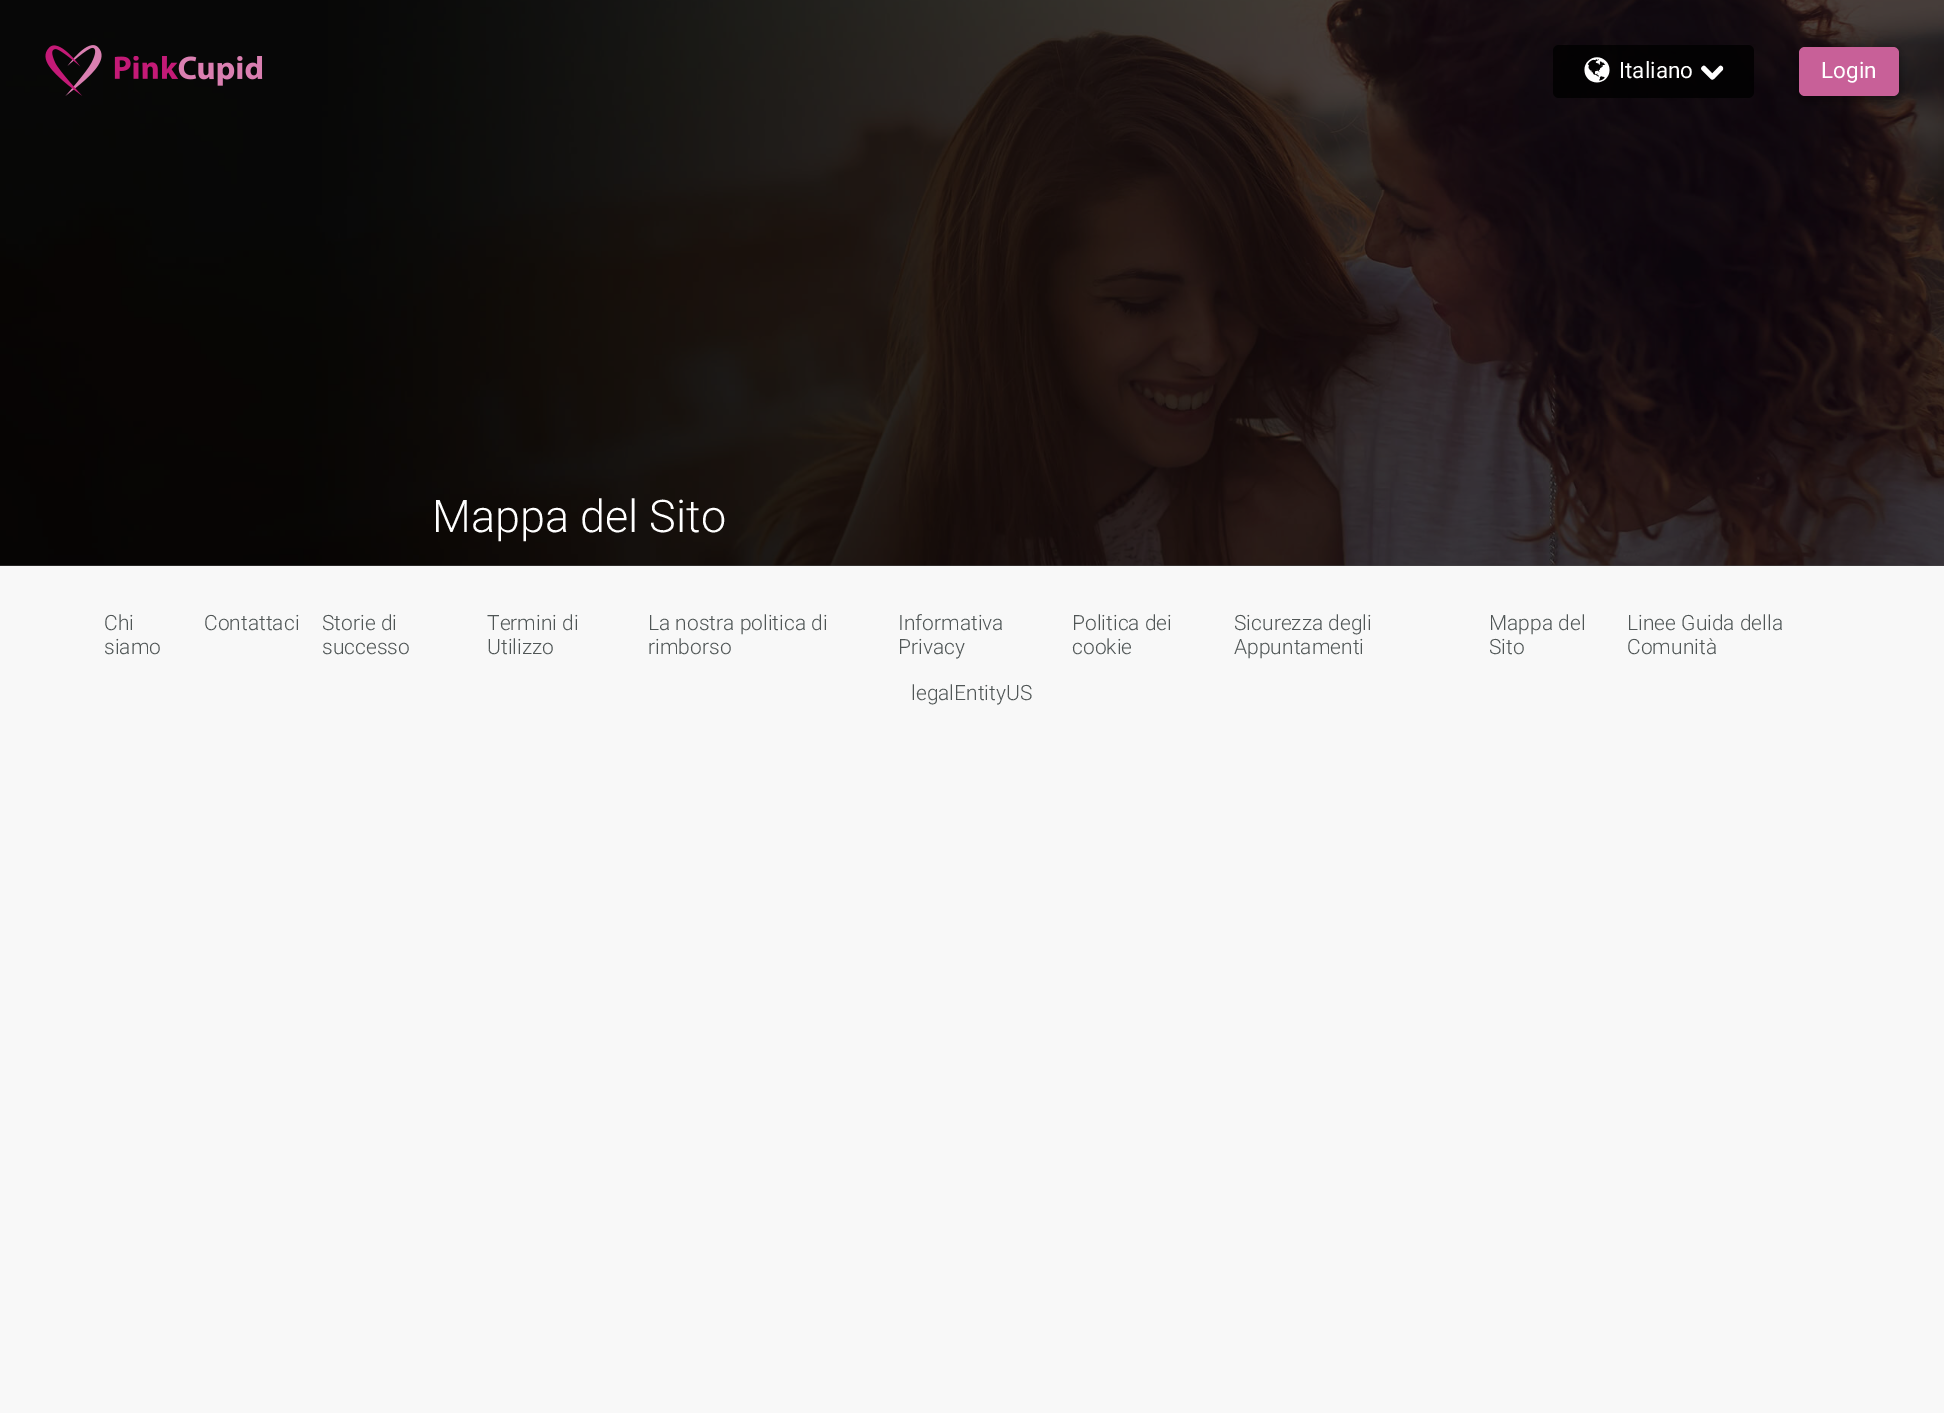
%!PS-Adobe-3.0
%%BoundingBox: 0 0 1944 1413
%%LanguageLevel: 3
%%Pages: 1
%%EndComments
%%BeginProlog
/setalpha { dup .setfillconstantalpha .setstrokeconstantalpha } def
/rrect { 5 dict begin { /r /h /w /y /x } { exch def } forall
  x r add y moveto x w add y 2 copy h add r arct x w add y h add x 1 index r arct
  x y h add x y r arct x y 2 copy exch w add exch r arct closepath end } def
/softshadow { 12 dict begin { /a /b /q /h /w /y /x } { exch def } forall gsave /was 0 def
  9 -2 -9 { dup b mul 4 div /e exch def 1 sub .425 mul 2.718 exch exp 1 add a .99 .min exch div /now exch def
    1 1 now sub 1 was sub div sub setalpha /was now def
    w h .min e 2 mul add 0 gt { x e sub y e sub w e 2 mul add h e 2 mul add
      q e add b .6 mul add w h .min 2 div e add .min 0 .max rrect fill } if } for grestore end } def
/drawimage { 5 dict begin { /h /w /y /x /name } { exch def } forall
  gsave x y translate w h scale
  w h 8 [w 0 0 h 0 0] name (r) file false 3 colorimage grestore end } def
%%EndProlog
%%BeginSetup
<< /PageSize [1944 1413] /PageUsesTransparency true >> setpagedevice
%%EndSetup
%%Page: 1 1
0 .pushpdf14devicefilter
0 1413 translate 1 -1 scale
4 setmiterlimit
0.973 setgray
0 0 1944 1413 rectfill
0.29 setgray
0 565 1944 1 rectfill
(images/1.raw) 0 0 1944 566 drawimage
(images/2.raw) 45 45 57 51 drawimage
(images/3.raw) 114 56 149 30 drawimage
0.8 setalpha
0 setgray
1553 45 201 53 6 rrect fill
1 setalpha
(images/4.raw) 1584 57 26 26 drawimage
(images/5.raw) 1701 65 23 15 drawimage
1799 51 100 50 6 4.5 0.4 softshadow
0.784 0.376 0.596 setrgbcolor
1799 47 100 49 6 rrect fill
/Roboto-Regular [22.5 0 0 -22.5 0 0] selectfont
1 setgray
1619 78 moveto (Italiano) show
1821 78 moveto (Login) show
/Roboto-Light [45 0 0 -45 0 0] selectfont
432 532 moveto (Mappa del Sito) show
/Roboto-Light [21 0 0 -21 0 0] selectfont
0.314 0.337 0.337 setrgbcolor
104 630 moveto (Chi) show
104 654 moveto (siamo) show
204 630 moveto (Contattaci) show
322 630 moveto (Storie di) show
322 654 moveto (successo) show
487 630 moveto (Termini di) show
487 654 moveto (Utilizzo) show
648 630 moveto (La nostra politica di) show
648 654 moveto (rimborso) show
898 630 moveto (Informativa) show
898 654 moveto (Privacy) show
1072 630 moveto (Politica dei) show
1072 654 moveto (cookie) show
1234 630 moveto (Sicurezza degli) show
1234 654 moveto (Appuntamenti) show
1489 630 moveto (Mappa del) show
1489 654 moveto (Sito) show
1627 630 moveto (Linee Guida della) show
1627 654 moveto (Comunità) show
911 700 moveto (legalEntityUS) show
.poppdf14devicefilter showpage
%%EOF
